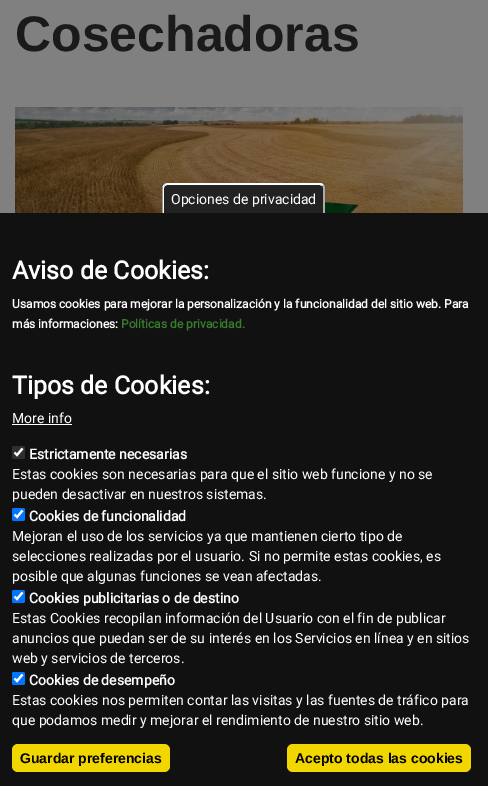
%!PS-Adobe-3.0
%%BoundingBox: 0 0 488 786
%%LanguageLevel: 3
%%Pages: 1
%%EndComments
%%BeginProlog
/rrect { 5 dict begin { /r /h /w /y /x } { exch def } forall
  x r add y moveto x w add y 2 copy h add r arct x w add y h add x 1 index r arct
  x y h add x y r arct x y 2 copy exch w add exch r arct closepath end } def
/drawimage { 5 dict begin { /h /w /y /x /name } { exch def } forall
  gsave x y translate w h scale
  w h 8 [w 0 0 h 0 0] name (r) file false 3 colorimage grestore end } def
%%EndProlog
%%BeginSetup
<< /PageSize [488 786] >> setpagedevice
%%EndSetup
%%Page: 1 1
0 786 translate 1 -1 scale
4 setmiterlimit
0.502 setgray
0 0 488 786 rectfill
(images/1.raw) 15 107 448 106 drawimage
(images/2.raw) 325 201 34 12 drawimage
0.067 setgray
0 213 488 573 rectfill
0.133 setgray
newpath 167 183 moveto 320 183 lineto 323 183 325 185 325 188 curveto 325 213 lineto 162 213 lineto 162 188 lineto 162 185 164 183 167 183 curveto closepath fill
1 setgray
newpath 167 183 moveto 164 184 lineto 165 186 lineto 167 185 lineto 320 185 lineto 322 186 lineto 324 185 lineto 323 184 322 183 320 183 curveto closepath fill
0.667 setgray
newpath 323 213 moveto 325 213 lineto 325 188 lineto 325 186.5 324.5 185.5 324 184.5 curveto 322.5 186 lineto 323 186.5 323 187 323 188 curveto closepath fill
1 setgray
newpath 162.5 213 moveto 162.5 186.5 lineto 163.5 184.5 lineto 165 186 lineto 164.5 186.5 164 187 164 188 curveto 164 213 lineto closepath fill
12 424 60 1 rectfill
0.184 setgray
12 446 13 13 2 rrect fill
1 setgray
2.1 setlinewidth
newpath 14.5 452.5 moveto 17 455 lineto 22.5 448.5 lineto stroke
0 0.459 1 setrgbcolor
12 508 13 13 2 rrect fill
1 setgray
newpath 14.5 514.5 moveto 17 517 lineto 22.5 510.5 lineto stroke
0 0.459 1 setrgbcolor
12 590 13 13 2 rrect fill
1 setgray
newpath 14.5 596.5 moveto 17 599 lineto 22.5 592.5 lineto stroke
0 0.459 1 setrgbcolor
12 672 13 13 2 rrect fill
1 setgray
newpath 14.5 678.5 moveto 17 681 lineto 22.5 674.5 lineto stroke
0.945 0.839 0 setrgbcolor
12 744 158 28 6 rrect fill
287 744 184 28 6 rrect fill
/LiberationSans-Bold [50 0 0 -50 0 0] selectfont
0.102 setgray
15 51 moveto (Cosechadoras) show
/Roboto-Regular [14 0 0 -14 0 0] selectfont
1 setgray
171 204 moveto (Opciones de privacidad) show
/Roboto-Bold [25 0 0 -25 0 0] selectfont
12 279 moveto (Aviso de Cookies:) show
/Roboto-Bold [12 0 0 -12 0 0] selectfont
12 308 moveto (Usamos cookies para mejorar la personalización y la funcionalidad del sitio web. Para) show
12 328 moveto (más informaciones:) show
0.216 0.486 0.169 setrgbcolor
121 328 moveto (Políticas de privacidad.) show
/Roboto-Bold [25 0 0 -25 0 0] selectfont
1 setgray
12 394 moveto (Tipos de Cookies:) show
/Roboto-Regular [14 0 0 -14 0 0] selectfont
12 423 moveto (More info) show
/Roboto-Bold [14 0 0 -14 0 0] selectfont
29 459 moveto (Estrictamente necesarias) show
/Roboto-Regular [14 0 0 -14 0 0] selectfont
12 479 moveto (Estas cookies son necesarias para que el sitio web funcione y no se) show
12 499 moveto (pueden desactivar en nuestros sistemas.) show
/Roboto-Bold [14 0 0 -14 0 0] selectfont
29 521 moveto (Cookies de funcionalidad) show
/Roboto-Regular [14 0 0 -14 0 0] selectfont
12 541 moveto (Mejoran el uso de los servicios ya que mantienen cierto tipo de) show
12 561 moveto (selecciones realizadas por el usuario. Si no permite estas cookies, es) show
12 581 moveto (posible que algunas funciones se vean afectadas.) show
/Roboto-Bold [14 0 0 -14 0 0] selectfont
29 603 moveto (Cookies publicitarias o de destino) show
/Roboto-Regular [14 0 0 -14 0 0] selectfont
12 623 moveto (Estas Cookies recopilan información del Usuario con el fin de publicar) show
12 643 moveto (anuncios que puedan ser de su interés en los Servicios en línea y en sitios) show
12 663 moveto (web y servicios de terceros.) show
/Roboto-Bold [14 0 0 -14 0 0] selectfont
29 685 moveto (Cookies de desempeño) show
/Roboto-Regular [14 0 0 -14 0 0] selectfont
12 705 moveto (Estas cookies nos permiten contar las visitas y las fuentes de tráfico para) show
12 725 moveto (que podamos medir y mejorar el rendimiento de nuestro sitio web.) show
/LiberationSans-Bold [14 0 0 -14 0 0] selectfont
0 setgray
20 763 moveto (Guardar preferencias) show
295 763 moveto (Acepto todas las cookies) show
showpage
%%EOF
